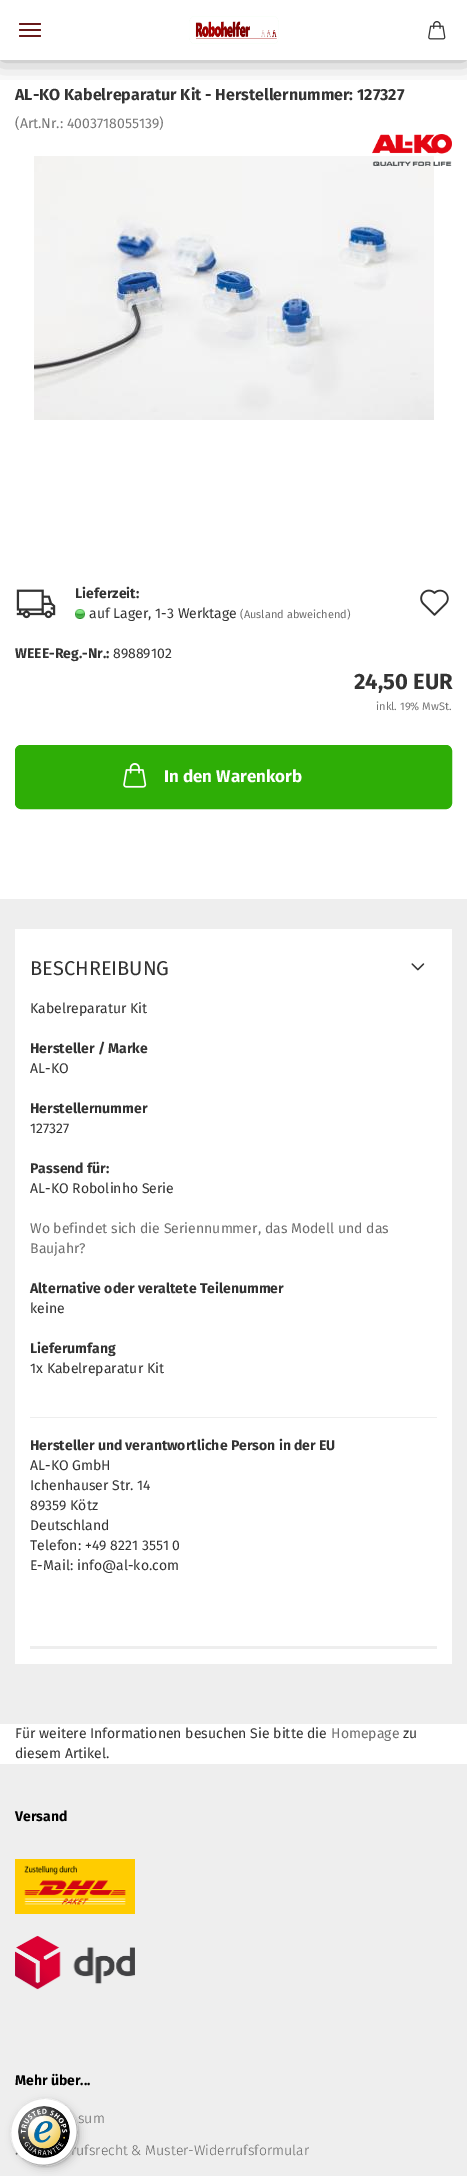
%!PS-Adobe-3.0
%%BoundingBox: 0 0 467 2176
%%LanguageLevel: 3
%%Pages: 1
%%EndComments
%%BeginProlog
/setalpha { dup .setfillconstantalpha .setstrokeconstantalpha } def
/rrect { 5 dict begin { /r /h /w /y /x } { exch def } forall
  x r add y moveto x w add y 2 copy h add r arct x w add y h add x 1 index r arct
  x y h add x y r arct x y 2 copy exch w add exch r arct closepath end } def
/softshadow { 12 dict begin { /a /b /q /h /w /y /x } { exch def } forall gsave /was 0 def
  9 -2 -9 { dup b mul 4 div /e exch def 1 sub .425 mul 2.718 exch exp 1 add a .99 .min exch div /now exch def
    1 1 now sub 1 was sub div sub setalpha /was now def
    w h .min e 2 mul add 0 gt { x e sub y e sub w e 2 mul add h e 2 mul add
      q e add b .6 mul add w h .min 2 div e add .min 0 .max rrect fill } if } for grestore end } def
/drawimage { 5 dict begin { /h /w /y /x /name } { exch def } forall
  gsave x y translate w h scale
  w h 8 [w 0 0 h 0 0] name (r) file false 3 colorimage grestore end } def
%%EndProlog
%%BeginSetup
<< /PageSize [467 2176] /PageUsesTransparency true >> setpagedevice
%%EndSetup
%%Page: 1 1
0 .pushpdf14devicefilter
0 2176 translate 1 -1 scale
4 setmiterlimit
1 setgray
0 0 467 2176 rectfill
gsave
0 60 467 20 rectclip
0 setgray
0 0 467 60 0 12.5 0.35 softshadow
grestore
(images/1.raw) 189 16 90 28 drawimage
(images/2.raw) 428 21 18 19 drawimage
0.408 0.098 0.098 setrgbcolor
19 29 22 2 1 rrect fill
19 23 22 2 1 rrect fill
19 35 22 2 1 rrect fill
(images/4.raw) 34 156 400 264 drawimage
(images/3.raw) 372 134 80 32 drawimage
(images/5.raw) 16 589 40 30 drawimage
(images/6.raw) 75 609 10 10 drawimage
(images/7.raw) 420 589 29 27 drawimage
0.18 0.682 0.024 setrgbcolor
15.5 745.5 436 63 5.5 rrect gsave fill grestore
stroke
(images/8.raw) 123 763 24 25 drawimage
0.933 setgray
0 899 467 825 rectfill
1 setgray
15 929 437 735 rectfill
(images/9.raw) 411 963 14 8 drawimage
0.933 setgray
30 1646 407 3 rectfill
30 1417 407 1 rectfill
0 1764 467 412 rectfill
(images/10.raw) 15 1859 120 55 drawimage
(images/11.raw) 15 1935 120 55 drawimage
(images/12.raw) 15 2149 3 6 drawimage
0 setgray
13 2101 68 68 34 4 0.15 softshadow
11 2099 68 68 34 1 0.15 softshadow
/FiraSans-Bold [16 0 0 -16 0 0] selectfont
0.2 setgray
15 100 moveto (AL-KO Kabelreparatur Kit - Herstellernummer: 127327) show
/FiraSans-Regular [14 0 0 -14 0 0] selectfont
0.467 setgray
15 128 moveto (\(Art.Nr.: 4003718055139\)) show
/FiraSans-Bold [14 0 0 -14 0 0] selectfont
0.2 setgray
75 598 moveto (Lieferzeit:) show
/FiraSans-Regular [14 0 0 -14 0 0] selectfont
89 618 moveto (auf Lager, 1-3 Werktage) show
/FiraSans-Regular [11 0 0 -11 0 0] selectfont
0.431 setgray
240 618 moveto (\(Ausland abweichend\)) show
/FiraSans-Bold [14 0 0 -14 0 0] selectfont
0.2 setgray
15 658 moveto (WEEE-Reg.-Nr.:) show
/FiraSans-Regular [14 0 0 -14 0 0] selectfont
113 658 moveto (89889102) show
/FiraSans-Bold [22 0 0 -22 0 0] selectfont
354 689 moveto (24,50 EUR) show
/FiraSans-Regular [11 0 0 -11 0 0] selectfont
0.467 setgray
376 710 moveto (inkl. 19% MwSt.) show
/FiraSans-Bold [17 0 0 -17 0 0] selectfont
1 setgray
164 782 moveto (In den Warenkorb) show
/FiraSans-Regular [20 0 0 -20 0 0] selectfont
0.2 setgray
30 975 moveto (BESCHREIBUNG) show
/FiraSans-Regular [14 0 0 -14 0 0] selectfont
30 1013 moveto (Kabelreparatur Kit) show
/FiraSans-Bold [14 0 0 -14 0 0] selectfont
30 1053 moveto (Hersteller / Marke) show
/FiraSans-Regular [14 0 0 -14 0 0] selectfont
30 1073 moveto (AL-KO) show
/FiraSans-Bold [14 0 0 -14 0 0] selectfont
30 1113 moveto (Herstellernummer) show
/FiraSans-Regular [14 0 0 -14 0 0] selectfont
30 1133 moveto (127327) show
/FiraSans-Bold [14 0 0 -14 0 0] selectfont
30 1173 moveto (Passend für:) show
/FiraSans-Regular [14 0 0 -14 0 0] selectfont
30 1193 moveto (AL-KO Robolinho Serie) show
0.431 setgray
30 1233 moveto (Wo befindet sich die Seriennummer, das Modell und das) show
30 1253 moveto (Baujahr?) show
/FiraSans-Bold [14 0 0 -14 0 0] selectfont
0.2 setgray
30 1293 moveto (Alternative oder veraltete Teilenummer) show
/FiraSans-Regular [14 0 0 -14 0 0] selectfont
30 1313 moveto (keine) show
/FiraSans-Bold [14 0 0 -14 0 0] selectfont
30 1353 moveto (Lieferumfang) show
/FiraSans-Regular [14 0 0 -14 0 0] selectfont
30 1373 moveto (1x Kabelreparatur Kit) show
/FiraSans-Bold [14 0 0 -14 0 0] selectfont
30 1450 moveto (Hersteller und verantwortliche Person in der EU) show
/FiraSans-Regular [14 0 0 -14 0 0] selectfont
30 1470 moveto (AL-KO GmbH) show
30 1490 moveto (Ichenhauser Str. 14) show
30 1510 moveto (89359 Kötz) show
30 1530 moveto (Deutschland) show
30 1550 moveto (Telefon: +49 8221 3551 0) show
30 1570 moveto (E-Mail: info@al-ko.com) show
15 1738 moveto (Für weitere Informationen besuchen Sie bitte die) show
0.431 setgray
331 1738 moveto (Homepage) show
0.2 setgray
403 1738 moveto (zu) show
15 1758 moveto (diesem Artikel.) show
/FiraSans-Bold [14 0 0 -14 0 0] selectfont
0 setgray
15 1821 moveto (Versand) show
15 2085 moveto (Mehr über...) show
/FiraSans-Light [14 0 0 -14 0 0] selectfont
0.4 setgray
78 2123 moveto (sum) show
71 2155 moveto (rufsrecht & Muster-Widerrufsformular) show
1 setgray
newpath 44 2132 34 0 360 arc closepath fill
0.1 setalpha
0 setgray
newpath 45 2099 moveto 53 2099 61 2102 67 2107 curveto 53 2095 33 2095 20 2108 curveto 7 2121 7 2141 19 2155 curveto 1 2133 16 2099 45 2099 curveto closepath fill
0.2 setalpha
newpath 21 2157 moveto 35 2169 55 2169 68 2156 curveto 81 2143 81 2123 69 2109 curveto 80 2123 79 2143 67 2155 curveto 55 2167 35 2168 21 2157 curveto closepath fill
0.196 setgray
newpath 17 2153 moveto 30 2169 54 2170 68 2156 curveto 82 2142 81 2118 65 2105 curveto 80 2118 81 2141 67 2155 curveto 53 2169 30 2168 17 2153 curveto closepath fill
0.3 setalpha
1 setgray
newpath 44 2166 moveto 63 2166 78 2151 78 2132 curveto 78 2150 62 2166 44 2166 curveto closepath 78 2132 moveto 78 2113 63 2098 44 2098 curveto 62 2098 78 2113 78 2132 curveto closepath eofill
1 setalpha
(images/13.raw) 18 2106 52 52 drawimage
.poppdf14devicefilter showpage
%%EOF
